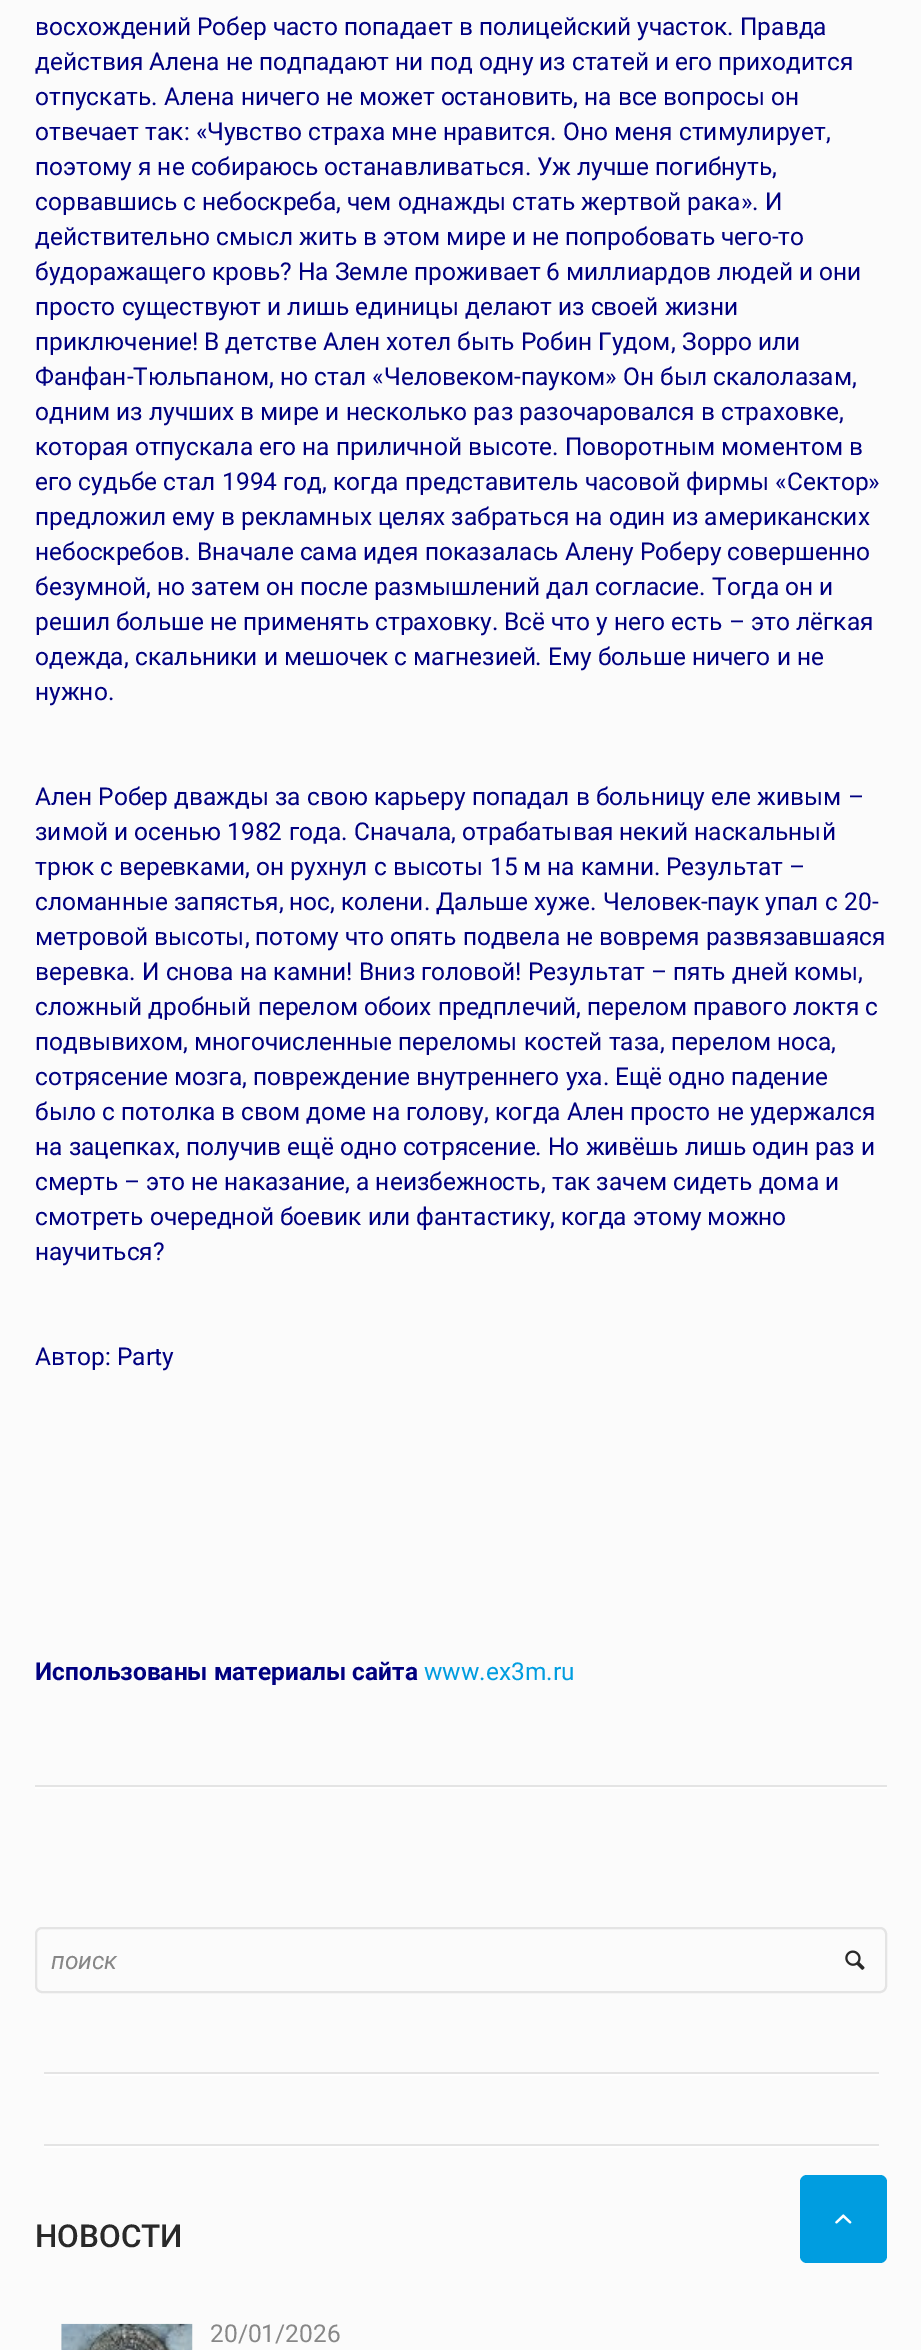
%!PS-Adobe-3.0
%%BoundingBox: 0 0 921 2350
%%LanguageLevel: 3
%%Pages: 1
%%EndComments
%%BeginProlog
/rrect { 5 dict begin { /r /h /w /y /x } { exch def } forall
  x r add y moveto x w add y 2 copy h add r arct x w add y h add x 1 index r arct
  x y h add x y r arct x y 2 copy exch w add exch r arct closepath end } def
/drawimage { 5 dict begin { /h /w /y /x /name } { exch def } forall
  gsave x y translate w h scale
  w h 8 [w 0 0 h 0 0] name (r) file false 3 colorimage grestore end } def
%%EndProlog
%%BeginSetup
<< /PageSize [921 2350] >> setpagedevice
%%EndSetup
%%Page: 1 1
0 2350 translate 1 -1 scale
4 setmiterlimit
0.984 setgray
0 0 921 2350 rectfill
0.996 setgray
35 1787 852 2 rectfill
0.894 setgray
35 1785 852 2 rectfill
2 setlinewidth
36 1928 850 64 6 rrect stroke
(images/1.raw) 845 1950 20 20 drawimage
0.996 setgray
44 2074 835 2 rectfill
0.894 setgray
44 2072 835 2 rectfill
0.996 setgray
44 2146 835 2 rectfill
0.894 setgray
44 2144 835 2 rectfill
(images/2.raw) 61 2323 132 27 drawimage
0 0.616 0.878 setrgbcolor
800 2175 87 88 7 rrect fill
(images/3.raw) 835 2214 17 10 drawimage
/Roboto-Regular [24.5 0 0 -24.5 0 0] selectfont
0 0 0.502 setrgbcolor
35 35 moveto (восхождений Робер часто попадает в полицейский участок) show
/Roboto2-Regular [24.5 0 0 -24.5 0 0] selectfont
727 35 moveto (.) show
/Roboto-Regular [24.5 0 0 -24.5 0 0] selectfont
740 35 moveto (Правда) show
35 70 moveto (действия Алена не подпадают ни под одну из статей и его приходится) show
35 105 moveto (отпускать) show
/Roboto2-Regular [24.5 0 0 -24.5 0 0] selectfont
151 105 moveto (.) show
/Roboto-Regular [24.5 0 0 -24.5 0 0] selectfont
164 105 moveto (Алена ничего не может остановить) show
/Roboto2-Regular [24.5 0 0 -24.5 0 0] selectfont
573 105 moveto (,) show
/Roboto-Regular [24.5 0 0 -24.5 0 0] selectfont
584 105 moveto (на все вопросы он) show
35 140 moveto (отвечает так) show
/Roboto2-Regular [24.5 0 0 -24.5 0 0] selectfont
184 140 moveto (: «) show
/Roboto-Regular [24.5 0 0 -24.5 0 0] selectfont
207 140 moveto (Чувство страха мне нравится) show
/Roboto2-Regular [24.5 0 0 -24.5 0 0] selectfont
550 140 moveto (.) show
/Roboto-Regular [24.5 0 0 -24.5 0 0] selectfont
563 140 moveto (Оно меня стимулирует) show
/Roboto2-Regular [24.5 0 0 -24.5 0 0] selectfont
826 140 moveto (,) show
/Roboto-Regular [24.5 0 0 -24.5 0 0] selectfont
35 175 moveto (поэтому я не собираюсь останавливаться) show
/Roboto2-Regular [24.5 0 0 -24.5 0 0] selectfont
525 175 moveto (.) show
/Roboto-Regular [24.5 0 0 -24.5 0 0] selectfont
537 175 moveto (Уж лучше погибнуть) show
/Roboto2-Regular [24.5 0 0 -24.5 0 0] selectfont
772 175 moveto (,) show
/Roboto-Regular [24.5 0 0 -24.5 0 0] selectfont
35 210 moveto (сорвавшись с небоскреба) show
/Roboto2-Regular [24.5 0 0 -24.5 0 0] selectfont
336 210 moveto (,) show
/Roboto-Regular [24.5 0 0 -24.5 0 0] selectfont
347 210 moveto (чем однажды стать жертвой рака) show
/Roboto2-Regular [24.5 0 0 -24.5 0 0] selectfont
741 210 moveto (».) show
/Roboto-Regular [24.5 0 0 -24.5 0 0] selectfont
765 210 moveto (И) show
35 245 moveto (действительно смысл жить в этом мире и не попробовать чего) show
/Roboto2-Regular [24.5 0 0 -24.5 0 0] selectfont
772 245 moveto (-) show
/Roboto-Regular [24.5 0 0 -24.5 0 0] selectfont
778 245 moveto (то) show
35 280 moveto (будоражащего кровь) show
/Roboto2-Regular [24.5 0 0 -24.5 0 0] selectfont
280 280 moveto (?) show
/Roboto-Regular [24.5 0 0 -24.5 0 0] selectfont
298 280 moveto (На Земле проживает) show
/Roboto2-Regular [24.5 0 0 -24.5 0 0] selectfont
546 280 moveto (6) show
/Roboto-Regular [24.5 0 0 -24.5 0 0] selectfont
566 280 moveto (миллиардов людей и они) show
35 315 moveto (просто существуют и лишь единицы делают из своей жизни) show
35 350 moveto (приключение) show
/Roboto2-Regular [24.5 0 0 -24.5 0 0] selectfont
192 350 moveto (!) show
/Roboto-Regular [24.5 0 0 -24.5 0 0] selectfont
204 350 moveto (В детстве Ален хотел быть Робин Гудом) show
/Roboto2-Regular [24.5 0 0 -24.5 0 0] selectfont
671 350 moveto (,) show
/Roboto-Regular [24.5 0 0 -24.5 0 0] selectfont
682 350 moveto (Зорро или) show
35 385 moveto (Фанфан) show
/Roboto2-Regular [24.5 0 0 -24.5 0 0] selectfont
127 385 moveto (-) show
/Roboto-Regular [24.5 0 0 -24.5 0 0] selectfont
133 385 moveto (Тюльпаном) show
280 385 moveto (но стал) show
/Roboto2-Regular [24.5 0 0 -24.5 0 0] selectfont
372 385 moveto («) show
/Roboto-Regular [24.5 0 0 -24.5 0 0] selectfont
384 385 moveto (Человеком) show
/Roboto2-Regular [24.5 0 0 -24.5 0 0] selectfont
514 385 moveto (-) show
/Roboto-Regular [24.5 0 0 -24.5 0 0] selectfont
521 385 moveto (пауком) show
/Roboto2-Regular [24.5 0 0 -24.5 0 0] selectfont
605 385 moveto (») show
/Roboto-Regular [24.5 0 0 -24.5 0 0] selectfont
623 385 moveto (Он был скалолазам) show
/Roboto2-Regular [24.5 0 0 -24.5 0 0] selectfont
269 385 moveto (,) show
852 385 moveto (,) show
/Roboto-Regular [24.5 0 0 -24.5 0 0] selectfont
35 420 moveto (одним из лучших в мире и несколько раз разочаровался в страховке) show
/Roboto2-Regular [24.5 0 0 -24.5 0 0] selectfont
839 420 moveto (,) show
/Roboto-Regular [24.5 0 0 -24.5 0 0] selectfont
35 455 moveto (которая отпускала его на приличной высоте) show
/Roboto2-Regular [24.5 0 0 -24.5 0 0] selectfont
552 455 moveto (.) show
/Roboto-Regular [24.5 0 0 -24.5 0 0] selectfont
565 455 moveto (Поворотным моментом в) show
35 490 moveto (его судьбе стал) show
/Roboto2-Regular [24.5 0 0 -24.5 0 0] selectfont
222 490 moveto (1994) show
/Roboto-Regular [24.5 0 0 -24.5 0 0] selectfont
283 490 moveto (год) show
333 490 moveto (когда представитель часовой фирмы) show
/Roboto2-Regular [24.5 0 0 -24.5 0 0] selectfont
775 490 moveto («) show
/Roboto-Regular [24.5 0 0 -24.5 0 0] selectfont
787 490 moveto (Сектор) show
/Roboto2-Regular [24.5 0 0 -24.5 0 0] selectfont
868 490 moveto (») show
322 490 moveto (,) show
/Roboto-Regular [24.5 0 0 -24.5 0 0] selectfont
35 525 moveto (предложил ему в рекламных целях забраться на один из американских) show
35 560 moveto (небоскребов) show
/Roboto2-Regular [24.5 0 0 -24.5 0 0] selectfont
184 560 moveto (.) show
/Roboto-Regular [24.5 0 0 -24.5 0 0] selectfont
197 560 moveto (Вначале сама идея показалась Алену Роберу совершенно) show
35 595 moveto (безумной) show
/Roboto2-Regular [24.5 0 0 -24.5 0 0] selectfont
146 595 moveto (,) show
/Roboto-Regular [24.5 0 0 -24.5 0 0] selectfont
157 595 moveto (но затем он после размышлений дал согласие) show
/Roboto2-Regular [24.5 0 0 -24.5 0 0] selectfont
699 595 moveto (.) show
/Roboto-Regular [24.5 0 0 -24.5 0 0] selectfont
712 595 moveto (Тогда он и) show
35 630 moveto (решил больше не применять страховку) show
504 630 moveto (Всё что у него есть) show
/Roboto2-Regular [24.5 0 0 -24.5 0 0] selectfont
729 630 moveto (–) show
/Roboto-Regular [24.5 0 0 -24.5 0 0] selectfont
751 630 moveto (это лёгкая) show
/Roboto2-Regular [24.5 0 0 -24.5 0 0] selectfont
492 630 moveto (.) show
/Roboto-Regular [24.5 0 0 -24.5 0 0] selectfont
35 665 moveto (одежда) show
/Roboto2-Regular [24.5 0 0 -24.5 0 0] selectfont
124 665 moveto (,) show
/Roboto-Regular [24.5 0 0 -24.5 0 0] selectfont
135 665 moveto (скальники и мешочек с магнезией) show
/Roboto2-Regular [24.5 0 0 -24.5 0 0] selectfont
535 665 moveto (.) show
/Roboto-Regular [24.5 0 0 -24.5 0 0] selectfont
548 665 moveto (Ему больше ничего и не) show
35 700 moveto (нужно) show
/Roboto2-Regular [24.5 0 0 -24.5 0 0] selectfont
108 700 moveto (.) show
/Roboto-Regular [24.5 0 0 -24.5 0 0] selectfont
35 805 moveto (Ален Робер дважды за свою карьеру попадал в больницу еле живым) show
/Roboto2-Regular [24.5 0 0 -24.5 0 0] selectfont
848 805 moveto (–) show
/Roboto-Regular [24.5 0 0 -24.5 0 0] selectfont
35 840 moveto (зимой и осенью) show
/Roboto2-Regular [24.5 0 0 -24.5 0 0] selectfont
227 840 moveto (1982) show
/Roboto-Regular [24.5 0 0 -24.5 0 0] selectfont
289 840 moveto (года) show
/Roboto2-Regular [24.5 0 0 -24.5 0 0] selectfont
341 840 moveto (.) show
/Roboto-Regular [24.5 0 0 -24.5 0 0] selectfont
354 840 moveto (Сначала) show
/Roboto2-Regular [24.5 0 0 -24.5 0 0] selectfont
451 840 moveto (,) show
/Roboto-Regular [24.5 0 0 -24.5 0 0] selectfont
462 840 moveto (отрабатывая некий наскальный) show
35 875 moveto (трюк с веревками) show
256 875 moveto (он рухнул с высоты) show
/Roboto2-Regular [24.5 0 0 -24.5 0 0] selectfont
490 875 moveto (15) show
/Roboto-Regular [24.5 0 0 -24.5 0 0] selectfont
523 875 moveto (м на камни) show
666 875 moveto (Результат) show
/Roboto2-Regular [24.5 0 0 -24.5 0 0] selectfont
789 875 moveto (–) show
245 875 moveto (,) show
654 875 moveto (.) show
/Roboto-Regular [24.5 0 0 -24.5 0 0] selectfont
35 910 moveto (сломанные запястья) show
289 910 moveto (нос) show
341 910 moveto (колени) show
436 910 moveto (Дальше хуже) show
603 910 moveto (Человек) show
/Roboto2-Regular [24.5 0 0 -24.5 0 0] selectfont
701 910 moveto (-) show
/Roboto-Regular [24.5 0 0 -24.5 0 0] selectfont
707 910 moveto (паук упал с) show
/Roboto2-Regular [24.5 0 0 -24.5 0 0] selectfont
844 910 moveto (20-) show
279 910 moveto (,) show
330 910 moveto (,) show
424 910 moveto (.) show
590 910 moveto (.) show
/Roboto-Regular [24.5 0 0 -24.5 0 0] selectfont
35 945 moveto (метровой высоты) show
/Roboto2-Regular [24.5 0 0 -24.5 0 0] selectfont
245 945 moveto (,) show
/Roboto-Regular [24.5 0 0 -24.5 0 0] selectfont
255 945 moveto (потому что опять подвела не вовремя развязавшаяся) show
35 980 moveto (веревка) show
142 980 moveto (И снова на камни) show
/Roboto2-Regular [24.5 0 0 -24.5 0 0] selectfont
346 980 moveto (!) show
/Roboto-Regular [24.5 0 0 -24.5 0 0] selectfont
359 980 moveto (Вниз головой) show
/Roboto2-Regular [24.5 0 0 -24.5 0 0] selectfont
515 980 moveto (!) show
/Roboto-Regular [24.5 0 0 -24.5 0 0] selectfont
528 980 moveto (Результат) show
/Roboto2-Regular [24.5 0 0 -24.5 0 0] selectfont
651 980 moveto (–) show
/Roboto-Regular [24.5 0 0 -24.5 0 0] selectfont
673 980 moveto (пять дней комы) show
/Roboto2-Regular [24.5 0 0 -24.5 0 0] selectfont
129 980 moveto (.) show
858 980 moveto (,) show
/Roboto-Regular [24.5 0 0 -24.5 0 0] selectfont
35 1015 moveto (сложный дробный перелом обоих предплечий) show
/Roboto2-Regular [24.5 0 0 -24.5 0 0] selectfont
576 1015 moveto (,) show
/Roboto-Regular [24.5 0 0 -24.5 0 0] selectfont
587 1015 moveto (перелом правого локтя с) show
35 1050 moveto (подвывихом) show
/Roboto2-Regular [24.5 0 0 -24.5 0 0] selectfont
183 1050 moveto (,) show
/Roboto-Regular [24.5 0 0 -24.5 0 0] selectfont
194 1050 moveto (многочисленные переломы костей таза) show
/Roboto2-Regular [24.5 0 0 -24.5 0 0] selectfont
660 1050 moveto (,) show
/Roboto-Regular [24.5 0 0 -24.5 0 0] selectfont
671 1050 moveto (перелом носа) show
/Roboto2-Regular [24.5 0 0 -24.5 0 0] selectfont
831 1050 moveto (,) show
/Roboto-Regular [24.5 0 0 -24.5 0 0] selectfont
35 1085 moveto (сотрясение мозга) show
/Roboto2-Regular [24.5 0 0 -24.5 0 0] selectfont
242 1085 moveto (,) show
/Roboto-Regular [24.5 0 0 -24.5 0 0] selectfont
253 1085 moveto (повреждение внутреннего уха) show
/Roboto2-Regular [24.5 0 0 -24.5 0 0] selectfont
603 1085 moveto (.) show
/Roboto-Regular [24.5 0 0 -24.5 0 0] selectfont
615 1085 moveto (Ещё одно падение) show
35 1120 moveto (было с потолка в свом доме на голову) show
/Roboto2-Regular [24.5 0 0 -24.5 0 0] selectfont
484 1120 moveto (,) show
/Roboto-Regular [24.5 0 0 -24.5 0 0] selectfont
495 1120 moveto (когда Ален просто не удержался) show
35 1155 moveto (на зацепках) show
/Roboto2-Regular [24.5 0 0 -24.5 0 0] selectfont
175 1155 moveto (,) show
/Roboto-Regular [24.5 0 0 -24.5 0 0] selectfont
186 1155 moveto (получив ещё одно сотрясение) show
/Roboto2-Regular [24.5 0 0 -24.5 0 0] selectfont
535 1155 moveto (.) show
/Roboto-Regular [24.5 0 0 -24.5 0 0] selectfont
548 1155 moveto (Но живёшь лишь один раз и) show
35 1190 moveto (смерть) show
/Roboto2-Regular [24.5 0 0 -24.5 0 0] selectfont
124 1190 moveto (–) show
/Roboto-Regular [24.5 0 0 -24.5 0 0] selectfont
146 1190 moveto (это не наказание) show
356 1190 moveto (а неизбежность) show
552 1190 moveto (так зачем сидеть дома и) show
/Roboto2-Regular [24.5 0 0 -24.5 0 0] selectfont
345 1190 moveto (,) show
541 1190 moveto (,) show
/Roboto-Regular [24.5 0 0 -24.5 0 0] selectfont
35 1225 moveto (смотреть очередной боевик или фантастику) show
/Roboto2-Regular [24.5 0 0 -24.5 0 0] selectfont
550 1225 moveto (,) show
/Roboto-Regular [24.5 0 0 -24.5 0 0] selectfont
561 1225 moveto (когда этому можно) show
35 1260 moveto (научиться) show
/Roboto2-Regular [24.5 0 0 -24.5 0 0] selectfont
153 1260 moveto (?) show
/Roboto-Regular [24.5 0 0 -24.5 0 0] selectfont
35 1365 moveto (Автор) show
/Roboto2-Regular [24.5 0 0 -24.5 0 0] selectfont
105 1365 moveto (: Party) show
/Roboto-Bold [24.5 0 0 -24.5 0 0] selectfont
35 1680 moveto (Использованы материалы сайта) show
/Roboto2-Regular [24.5 0 0 -24.5 0 0] selectfont
0 0.616 0.878 setrgbcolor
424 1680 moveto (www.ex3m.ru) show
/Roboto-Italic [24.5 0 0 -24.5 0 0] selectfont
0.529 setgray
51 1969 moveto (поиск) show
/Roboto-Medium [31.5 0 0 -31.5 0 0] selectfont
0.161 setgray
35 2247 moveto (НОВОСТИ) show
/Roboto2-Regular [24.5 0 0 -24.5 0 0] selectfont
0.529 setgray
210 2342 moveto (20/01/2026) show
showpage
%%EOF
